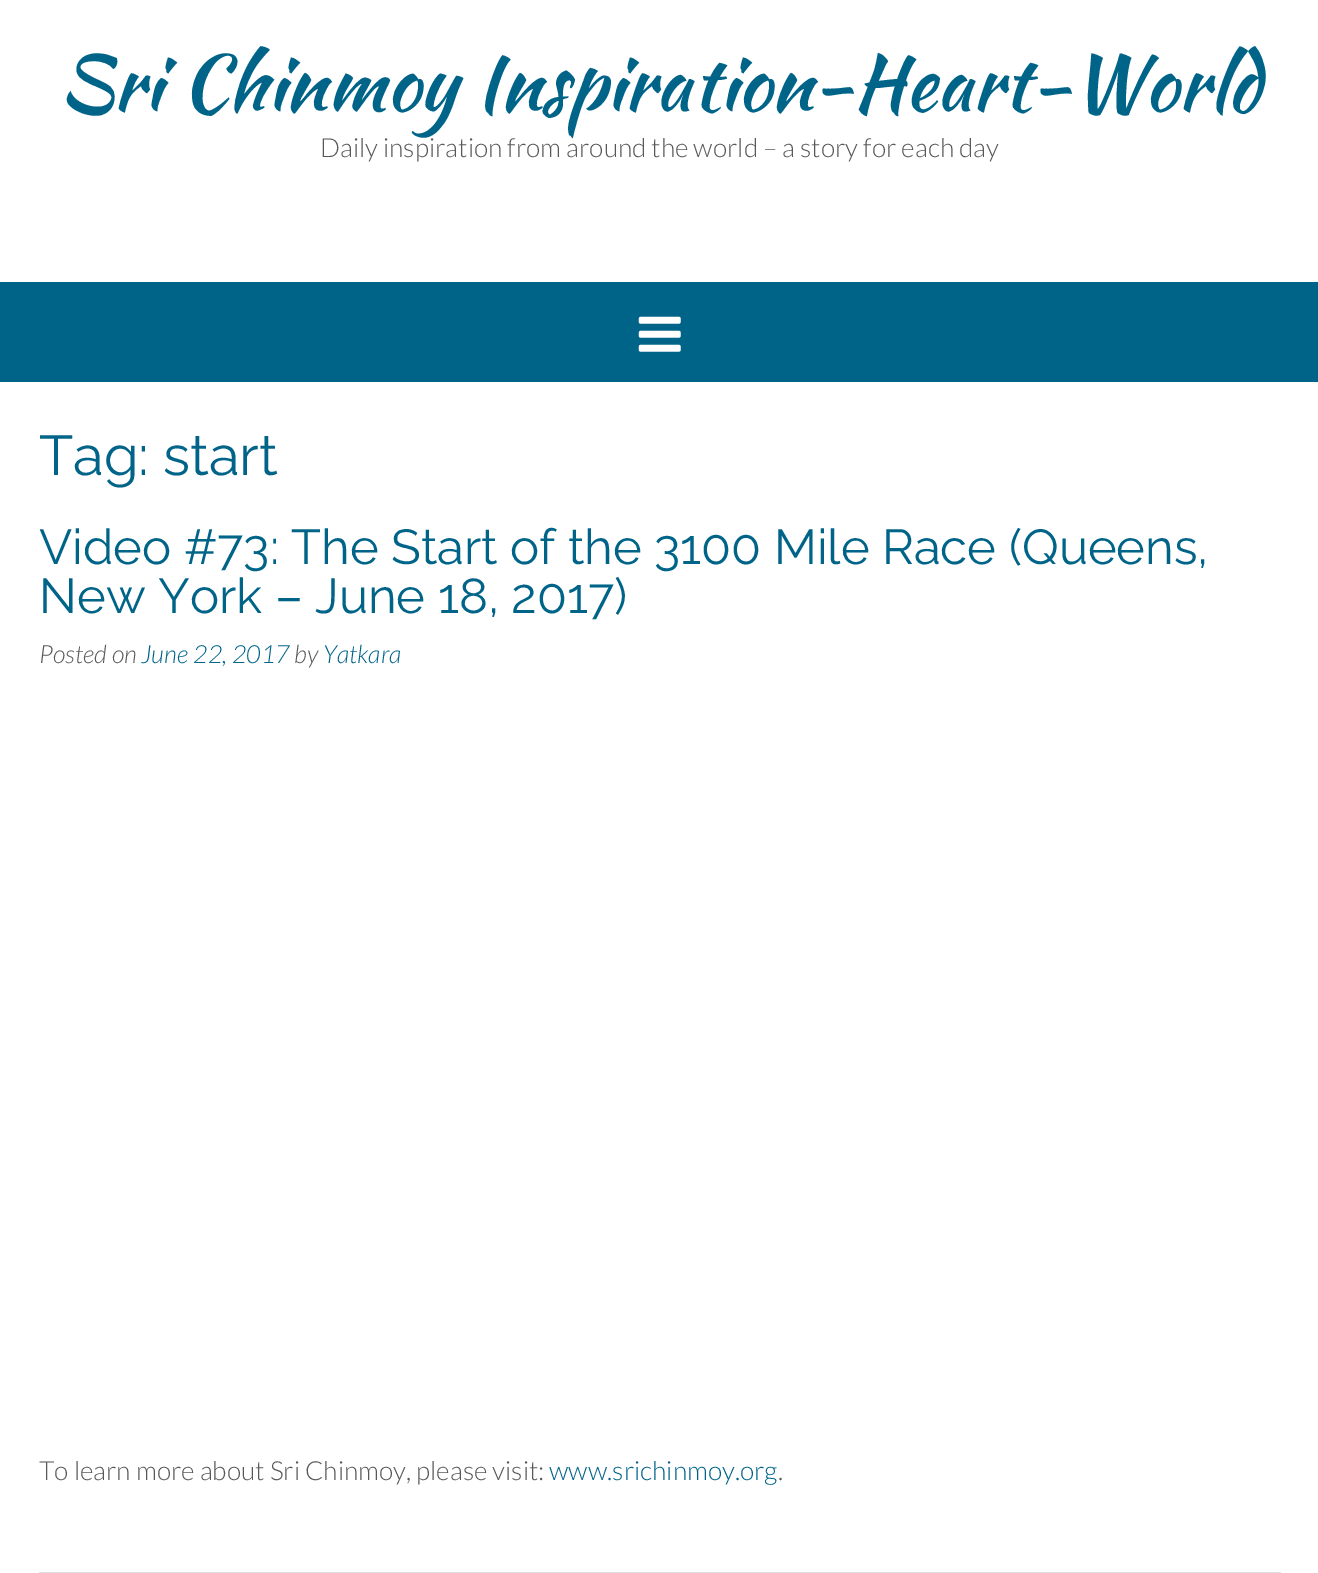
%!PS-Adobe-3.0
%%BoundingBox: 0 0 1318 1573
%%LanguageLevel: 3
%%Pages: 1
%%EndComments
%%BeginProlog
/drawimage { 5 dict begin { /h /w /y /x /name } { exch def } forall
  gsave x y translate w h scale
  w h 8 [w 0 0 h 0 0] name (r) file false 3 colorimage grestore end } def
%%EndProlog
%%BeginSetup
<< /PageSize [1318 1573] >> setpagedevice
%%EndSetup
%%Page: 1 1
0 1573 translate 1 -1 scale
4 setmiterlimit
1 setgray
0 0 1318 1573 rectfill
0 0.392 0.537 setrgbcolor
0 282 1318 100 rectfill
(images/1.raw) 638 316 43 36 drawimage
0.878 setgray
39 1572 1242 1 rectfill
/KaushanScript-Regular [77 0 0 -77 0 0] selectfont
0 0.392 0.537 setrgbcolor
59 110 moveto (Sri Chinmoy Inspiration-Heart-World) show
/Lato-Light [26.25 0 0 -26.25 0 0] selectfont
0.345 0.345 0.353 setrgbcolor
320 157 moveto (Daily inspiration from around the world – a story for each day) show
/Raleway-Regular [56 0 0 -56 0 0] selectfont
0 0.392 0.537 setrgbcolor
39 475 moveto (Tag: start) show
/Raleway-Regular [49 0 0 -49 0 0] selectfont
39 564 moveto (Video #73: The Start of the 3100 Mile Race \(Queens,) show
39 613 moveto (New York – June 18, 2017\)) show
/Lato-LightItalic [25 0 0 -25 0 0] selectfont
0.345 0.345 0.353 setrgbcolor
39 663 moveto (Posted on) show
0 0.392 0.537 setrgbcolor
141 663 moveto (June 22, 2017) show
0.345 0.345 0.353 setrgbcolor
294 663 moveto (by) show
0 0.392 0.537 setrgbcolor
323 663 moveto (Yatkara) show
/Lato-Light [26.25 0 0 -26.25 0 0] selectfont
0.345 0.345 0.353 setrgbcolor
39 1480 moveto (To learn more about Sri Chinmoy, please visit:) show
0 0.392 0.537 setrgbcolor
549 1480 moveto (www.srichinmoy.org) show
0.345 0.345 0.353 setrgbcolor
778 1480 moveto (.) show
showpage
%%EOF
